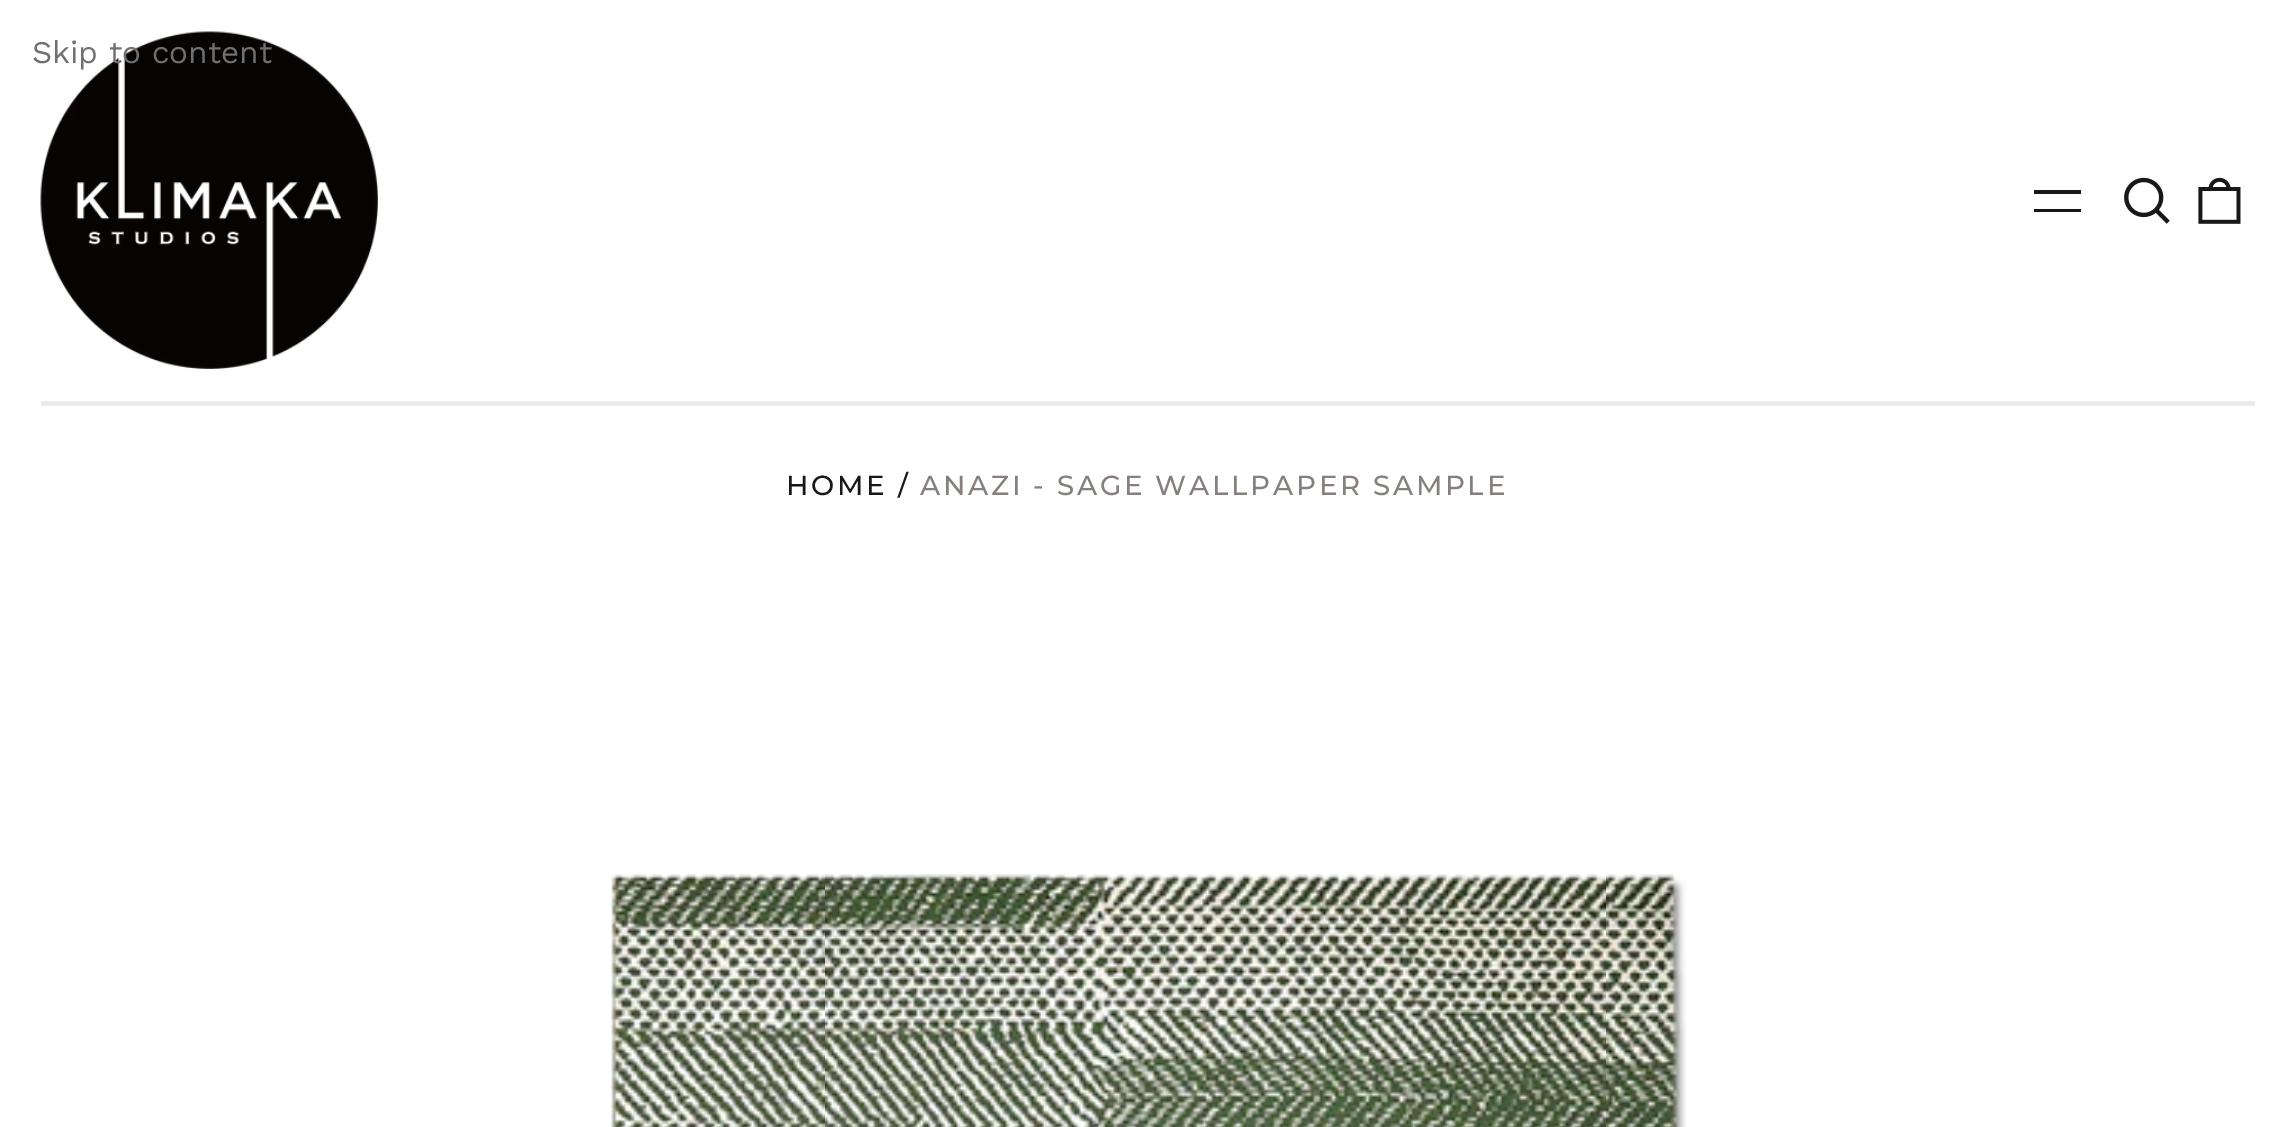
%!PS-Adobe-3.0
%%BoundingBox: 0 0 2291 1127
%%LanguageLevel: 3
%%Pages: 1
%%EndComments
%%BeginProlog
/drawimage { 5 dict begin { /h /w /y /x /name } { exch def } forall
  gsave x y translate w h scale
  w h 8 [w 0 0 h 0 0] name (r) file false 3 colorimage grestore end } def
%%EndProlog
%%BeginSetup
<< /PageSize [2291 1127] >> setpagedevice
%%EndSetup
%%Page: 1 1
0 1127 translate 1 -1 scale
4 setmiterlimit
1 setgray
0 0 2291 1127 rectfill
0.922 setgray
41 401 2214 5 rectfill
(images/1.raw) 40 31 338 338 drawimage
0.086 0.094 0.098 setrgbcolor
newpath 2081 209 moveto 2081 212 lineto 2034 212 lineto 2034 209 lineto closepath 2081 190 moveto 2081 194 lineto 2034 194 lineto 2034 190 lineto closepath eofill
(images/2.raw) 2124 177 46 47 drawimage
(images/3.raw) 2198 177 43 47 drawimage
(images/4.raw) 611 874 1076 253 drawimage
/WorkSans-Regular [31.5 0 0 -31.5 0 0] selectfont
0.447 0.435 0.435 setrgbcolor
32 63 moveto (Skip to content) show
/Montserrat-Medium [27.6 0 0 -27.6 0 0] selectfont
0.086 0.094 0.098 setrgbcolor
786 495 moveto 2.75 0 (HOME /) ashow
0.529 0.494 0.494 setrgbcolor
920 495 moveto 2.75 0 (ANAZI - SAGE WALLPAPER SAMPLE) ashow
showpage
%%EOF
